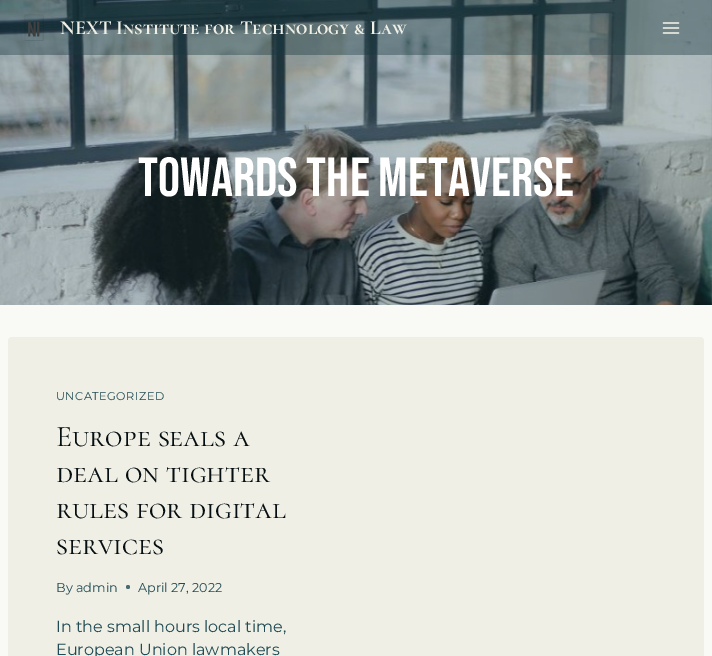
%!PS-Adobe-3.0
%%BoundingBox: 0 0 712 656
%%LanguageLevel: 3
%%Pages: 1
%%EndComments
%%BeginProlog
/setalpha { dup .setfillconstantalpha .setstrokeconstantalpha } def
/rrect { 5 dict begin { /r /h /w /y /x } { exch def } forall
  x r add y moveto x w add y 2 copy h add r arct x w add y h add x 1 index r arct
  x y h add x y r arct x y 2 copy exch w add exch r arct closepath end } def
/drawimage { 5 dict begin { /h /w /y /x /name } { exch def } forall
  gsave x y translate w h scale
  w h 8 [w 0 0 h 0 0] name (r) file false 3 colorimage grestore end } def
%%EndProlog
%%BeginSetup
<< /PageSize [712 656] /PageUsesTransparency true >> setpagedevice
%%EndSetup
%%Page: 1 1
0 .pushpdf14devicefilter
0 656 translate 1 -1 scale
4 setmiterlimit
0.976 0.976 0.961 setrgbcolor
0 0 712 656 rectfill
(images/3.raw) 0 0 712 305 drawimage
0.4 setalpha
0.09 0.216 0.243 setrgbcolor
0 0 712 55 rectfill
1 setalpha
(images/1.raw) 24 14 20 27 drawimage
(images/2.raw) 662 22 18 12 drawimage
0.937 0.937 0.898 setrgbcolor
8 337 696 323 4 rrect fill
0.286 0.424 0.443 setrgbcolor
newpath 128 587 2 0 360 arc closepath fill
/CormorantSC-Bold [20 0 0 -20 0 0] selectfont
0.937 0.937 0.898 setrgbcolor
60 34 moveto (NEXT Institute for Technology & Law) show
/BebasNeue-Regular [55 0 0 -55 0 0] selectfont
1 setgray
138 196 moveto (Towards the metaverse) show
/Montserrat-Regular [11.25 0 0 -11.25 0 0] selectfont
0.125 0.294 0.329 setrgbcolor
56 400 moveto 0.5 0 (UNCATEGORIZED) ashow
/CormorantSC-Regular [30 0 0 -30 0 0] selectfont
0.02 0.055 0.063 setrgbcolor
56 446 moveto (Europe seals a) show
56 482 moveto (deal on tighter) show
56 518 moveto (rules for digital) show
56 554 moveto (services) show
/Montserrat-Regular [12.75 0 0 -12.75 0 0] selectfont
0.125 0.294 0.329 setrgbcolor
56 592 moveto (By admin) show
138 592 moveto (April 27, 2022) show
/Montserrat-Regular [16 0 0 -16 0 0] selectfont
56 632 moveto (In the small hours local time,) show
56 655 moveto (European Union lawmakers) show
.poppdf14devicefilter showpage
%%EOF
